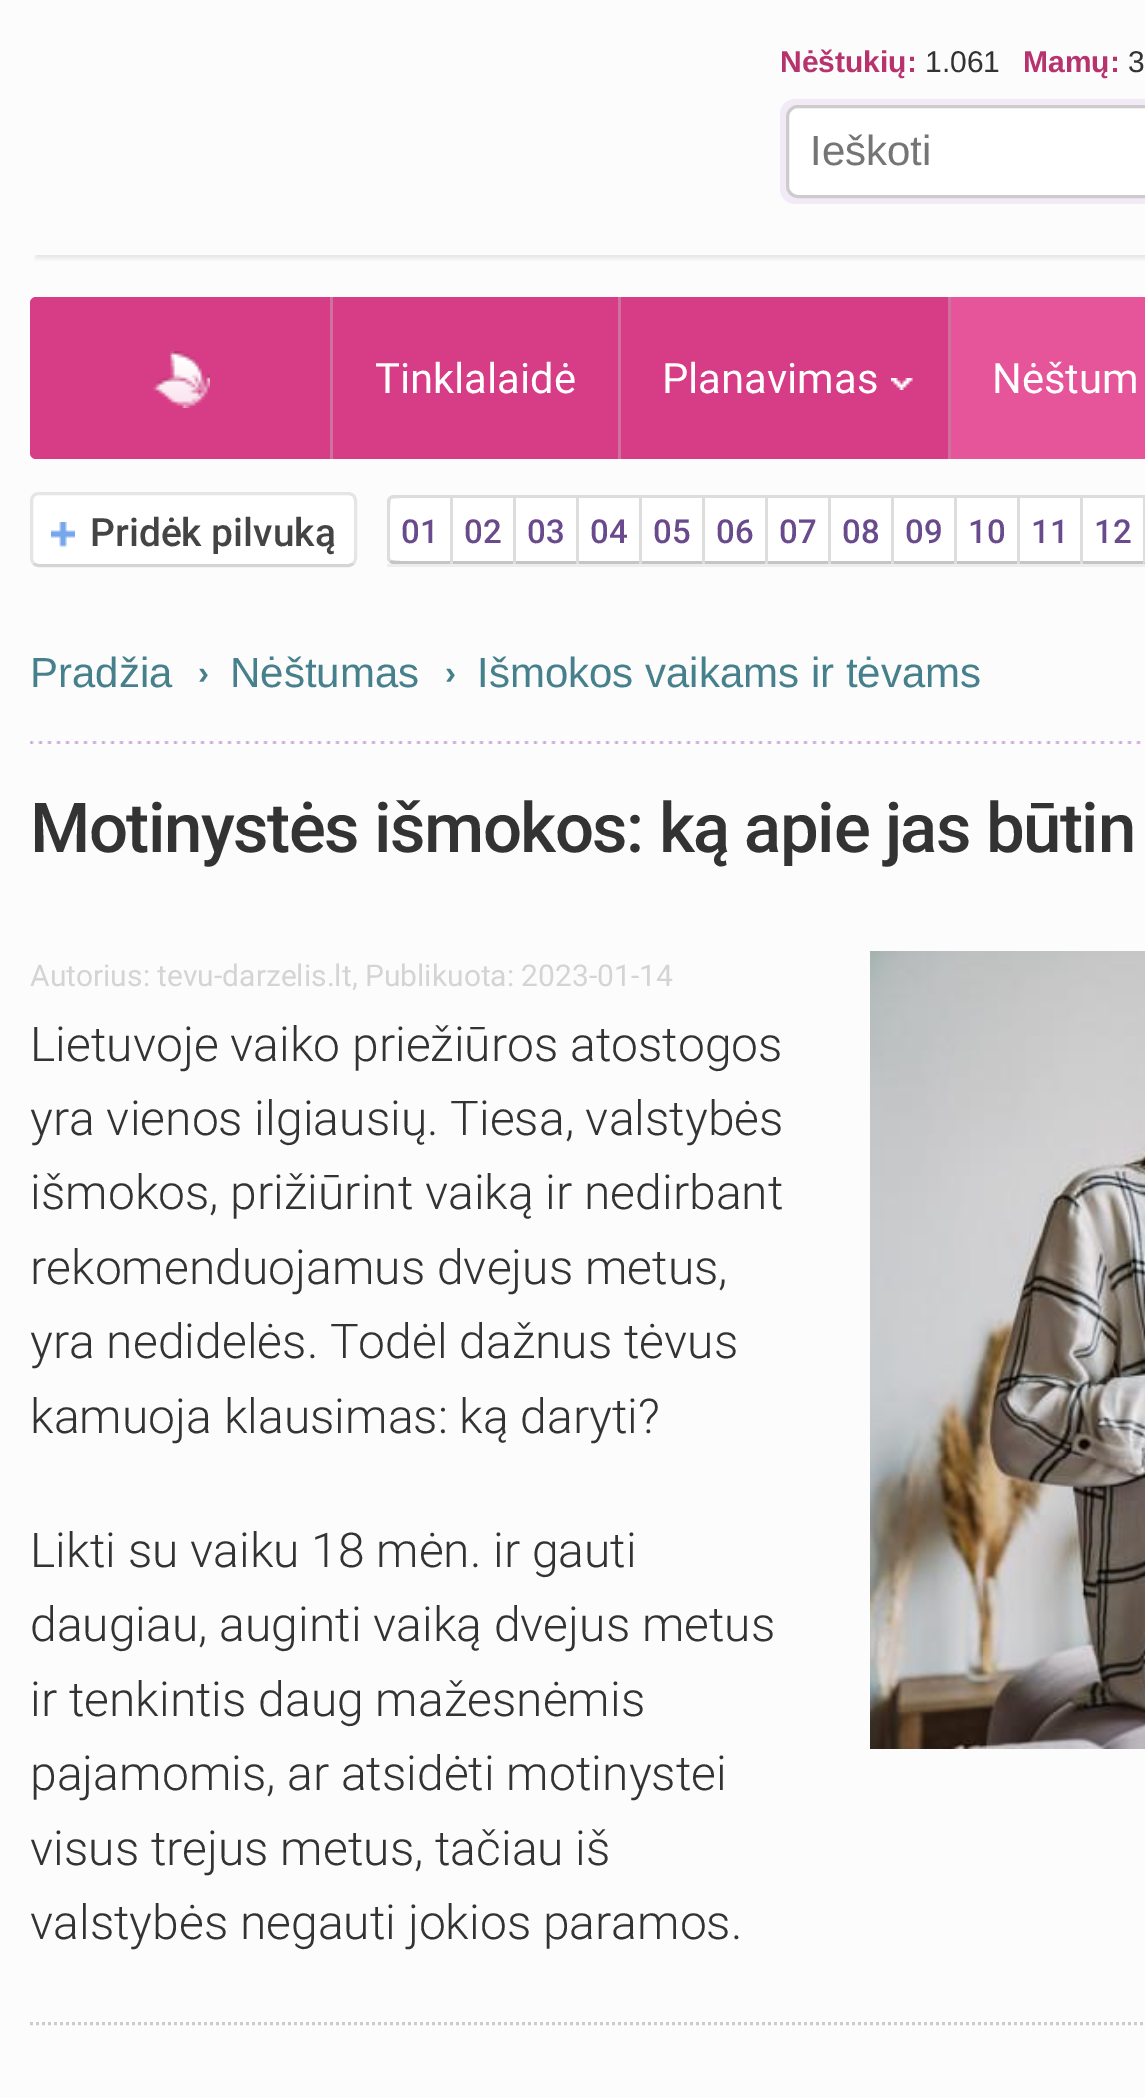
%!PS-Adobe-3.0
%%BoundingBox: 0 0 1145 2098
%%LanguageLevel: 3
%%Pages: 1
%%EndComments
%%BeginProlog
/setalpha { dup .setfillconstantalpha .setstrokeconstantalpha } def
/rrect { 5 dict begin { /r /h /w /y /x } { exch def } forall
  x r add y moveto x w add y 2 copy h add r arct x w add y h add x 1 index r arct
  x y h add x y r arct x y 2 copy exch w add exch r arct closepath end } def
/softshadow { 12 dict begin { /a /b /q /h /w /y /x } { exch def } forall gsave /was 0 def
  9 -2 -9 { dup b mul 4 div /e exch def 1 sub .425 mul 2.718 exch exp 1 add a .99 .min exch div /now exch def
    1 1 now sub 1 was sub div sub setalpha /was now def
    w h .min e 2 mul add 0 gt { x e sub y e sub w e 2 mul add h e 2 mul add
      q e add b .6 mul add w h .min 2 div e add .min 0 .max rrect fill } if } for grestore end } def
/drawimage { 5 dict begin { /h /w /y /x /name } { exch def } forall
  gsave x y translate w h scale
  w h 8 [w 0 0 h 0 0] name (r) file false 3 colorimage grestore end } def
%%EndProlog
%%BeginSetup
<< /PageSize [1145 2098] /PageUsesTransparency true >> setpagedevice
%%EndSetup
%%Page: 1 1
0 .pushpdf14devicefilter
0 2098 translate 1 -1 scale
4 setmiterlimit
0.988 setgray
0 0 1145 2098 rectfill
gsave
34 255 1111 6 rectclip
0 setgray
36 15 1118 243 0 3 0.1 softshadow
grestore
0.953 0.918 0.969 setrgbcolor
780 99 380 105 15 rrect fill
1 setgray
787.5 106.5 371 90 10.5 rrect gsave fill grestore
0.8 setgray
3 setlinewidth
stroke
0.843 0.239 0.525 setrgbcolor
30 297 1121 162 6 rrect fill
(images/1.raw) 153 351 57 57 drawimage
0.808 0.443 0.616 setrgbcolor
330 297 3 162 rectfill
618 297 3 162 rectfill
(images/2.raw) 891 378 22 12 drawimage
948 297 3 162 rectfill
0.902 0.333 0.604 setrgbcolor
951 297 194 162 rectfill
1 setgray
30 492 327 75 9 rrect fill
0.835 setgray
newpath 353.5 563.5 moveto 352 564.5 350 565.5 348 565.5 curveto 39 565.5 lineto 37 565.5 35 564.5 33.5 563.5 curveto stroke
0.898 setgray
newpath 33.5 563.5 moveto 32.5 562 31.5 560 31.5 558 curveto 31.5 501 lineto 31.5 499 32.5 497 33.5 495.5 curveto 35 494.5 37 493.5 39 493.5 curveto 348 493.5 lineto 350 493.5 352 494.5 353.5 495.5 curveto 354.5 497 355.5 499 355.5 501 curveto 355.5 558 lineto 355.5 560 354.5 562 353.5 563.5 curveto stroke
(images/3.raw) 51 522 24 25 drawimage
0.929 setgray
387 564 758 3 rectfill
1 setgray
newpath 393 498 moveto 450 498 lineto 450 561 lineto 393 561 lineto 391.5 561 390 559.5 390 558 curveto 390 501 lineto 390 499.5 391.5 498 393 498 curveto closepath fill
0.867 setgray
newpath 393 495 moveto 392 495 390 496 389 497 curveto 391 499 lineto 393 497 443 498 450 498 curveto 450 495 lineto closepath fill
0.773 setgray
newpath 450 564 moveto 450 561 lineto 443 561 393 562 391 560 curveto 389 562 lineto 390 563 392 564 393 564 curveto closepath fill
0.867 setgray
newpath 387 501 moveto 387 558 lineto 387 560 388 561 389 562 curveto 391 560 lineto 390 558 lineto 390 553 389 501 391 499 curveto 389 497 lineto 388 498 387 500 387 501 curveto closepath fill
1 setgray
453 498 60 63 rectfill
0.867 setgray
450 495 693 3 rectfill
0.773 setgray
450 561 693 3 rectfill
0.867 setgray
450 495 3 69 rectfill
1 setgray
516 498 60 63 rectfill
0.867 setgray
513 495 3 69 rectfill
1 setgray
579 498 60 63 rectfill
0.867 setgray
576 495 3 69 rectfill
1 setgray
642 498 60 63 rectfill
0.867 setgray
639 495 3 69 rectfill
1 setgray
705 498 60 63 rectfill
0.867 setgray
702 495 3 69 rectfill
1 setgray
768 498 60 63 rectfill
0.867 setgray
765 495 3 69 rectfill
1 setgray
831 498 60 63 rectfill
0.867 setgray
828 495 3 69 rectfill
1 setgray
894 498 60 63 rectfill
0.867 setgray
891 495 3 69 rectfill
1 setgray
957 498 60 63 rectfill
0.867 setgray
954 495 3 69 rectfill
1 setgray
1020 498 60 63 rectfill
0.867 setgray
1017 495 3 69 rectfill
1 setgray
1083 498 60 63 rectfill
0.867 setgray
1080 495 3 69 rectfill
newpath 1143 495 moveto 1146 498 lineto 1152 498 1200 497 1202 499 curveto 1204 497 lineto 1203 496 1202 495 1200 495 curveto closepath fill
0.773 setgray
newpath 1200 564 moveto 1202 564 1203 563 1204 562 curveto 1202 560 lineto 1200 562 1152 561 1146 561 curveto 1143 564 lineto closepath fill
0.867 setgray
newpath 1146 498 moveto 1143 495 lineto 1143 564 lineto 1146 561 lineto closepath fill
(images/4.raw) 30 741 1111 3 drawimage
(images/5.raw) 870 951 275 798 drawimage
0.8 setgray
[3 3] 0 setdash
newpath 30 2023.5 moveto 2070 2023.5 lineto stroke
/LiberationSans-Bold [30 0 0 -30 0 0] selectfont
0.718 0.2 0.431 setrgbcolor
780 72 moveto (Nėštukių:) show
/LiberationSans-Regular [30 0 0 -30 0 0] selectfont
0.2 setgray
925 72 moveto (1.061) show
/LiberationSans-Bold [30 0 0 -30 0 0] selectfont
0.718 0.2 0.431 setrgbcolor
1023 72 moveto (Mamų:) show
/LiberationSans-Regular [30 0 0 -30 0 0] selectfont
0.2 setgray
1128 72 moveto (3) show
/LiberationSans-Regular [42 0 0 -42 0 0] selectfont
0.459 setgray
810 165 moveto (Ieškoti) show
/Roboto-Regular [41.75 0 0 -41.75 0 0] selectfont
1 setgray
375 393 moveto (Tinklalaidė) show
662 393 moveto (Planavimas) show
992 393 moveto (Nėštum) show
/Roboto-Medium [39 0 0 -39 0 0] selectfont
0.267 setgray
90 546 moveto (Pridėk pilvuką) show
/Roboto-Medium [33 0 0 -33 0 0] selectfont
0.412 0.29 0.549 setrgbcolor
401 543 moveto (01) show
464 543 moveto (02) show
527 543 moveto (03) show
590 543 moveto (04) show
653 543 moveto (05) show
716 543 moveto (06) show
779 543 moveto (07) show
842 543 moveto (08) show
905 543 moveto (09) show
968 543 moveto (10) show
1031 543 moveto (11) show
1094 543 moveto (12) show
/LiberationSans-Regular [42 0 0 -42 0 0] selectfont
0.275 0.502 0.549 setrgbcolor
30 687 moveto (Pradžia) show
/LiberationSans-Bold [33 0 0 -33 0 0] selectfont
198 684 moveto (›) show
/LiberationSans-Regular [42 0 0 -42 0 0] selectfont
230 687 moveto (Nėštumas) show
/LiberationSans-Bold [33 0 0 -33 0 0] selectfont
445 684 moveto (›) show
/LiberationSans-Regular [42 0 0 -42 0 0] selectfont
477 687 moveto (Išmokos vaikams ir tėvams) show
/Roboto-Medium [69 0 0 -69 0 0] selectfont
0.2 setgray
30 852 moveto -1.5 0 (Motinystės išmokos: ką apie jas būtin) ashow
/Roboto-Regular [30 0 0 -30 0 0] selectfont
0.831 setgray
30 986 moveto (Autorius: tevu-darzelis.lt, Publikuota: 2023-01-14) show
/Roboto-Light [48 0 0 -48 0 0] selectfont
0.2 setgray
30 1061 moveto (Lietuvoje vaiko priežiūros atostogos) show
30 1135 moveto (yra vienos ilgiausių. Tiesa, valstybės) show
30 1209 moveto (išmokos, prižiūrint vaiką ir nedirbant) show
30 1284 moveto (rekomenduojamus dvejus metus,) show
30 1358 moveto (yra nedidelės. Todėl dažnus tėvus) show
30 1433 moveto (kamuoja klausimas: ką daryti?) show
30 1567 moveto (Likti su vaiku 18 mėn. ir gauti) show
30 1641 moveto (daugiau, auginti vaiką dvejus metus) show
30 1716 moveto (ir tenkintis daug mažesnėmis) show
30 1790 moveto (pajamomis, ar atsidėti motinystei) show
30 1865 moveto (visus trejus metus, tačiau iš) show
30 1939 moveto (valstybės negauti jokios paramos.) show
.poppdf14devicefilter showpage
%%EOF
